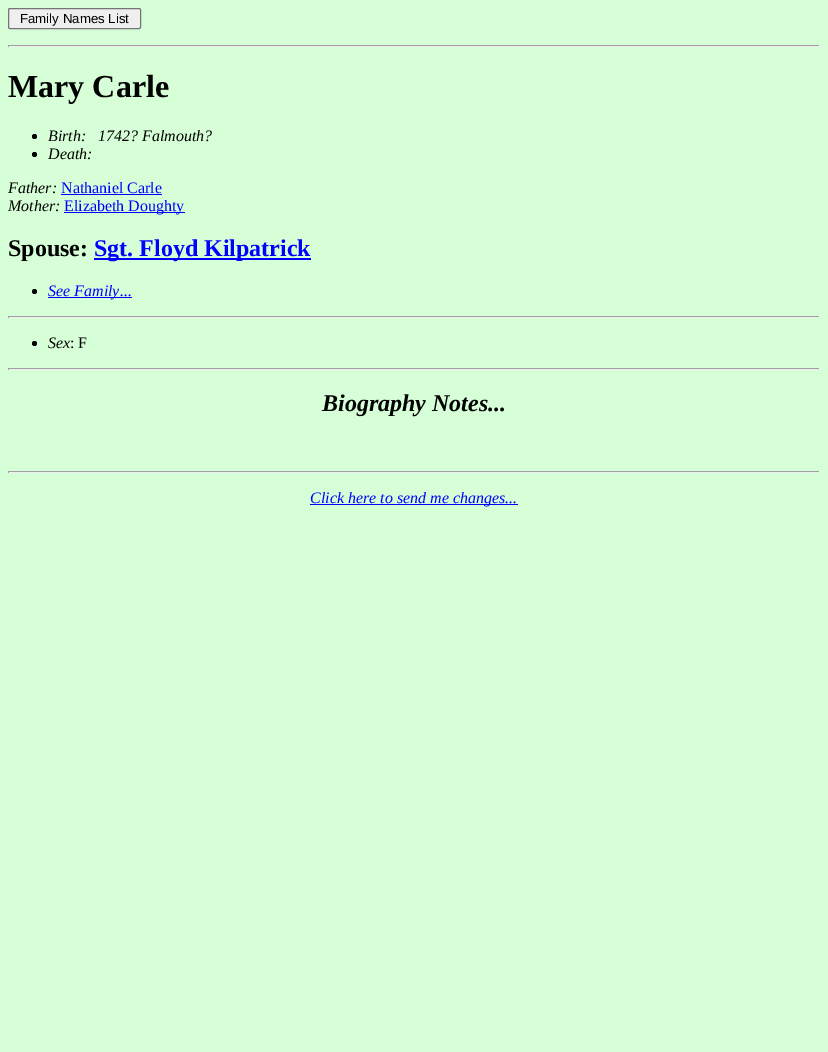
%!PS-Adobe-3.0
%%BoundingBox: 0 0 828 1052
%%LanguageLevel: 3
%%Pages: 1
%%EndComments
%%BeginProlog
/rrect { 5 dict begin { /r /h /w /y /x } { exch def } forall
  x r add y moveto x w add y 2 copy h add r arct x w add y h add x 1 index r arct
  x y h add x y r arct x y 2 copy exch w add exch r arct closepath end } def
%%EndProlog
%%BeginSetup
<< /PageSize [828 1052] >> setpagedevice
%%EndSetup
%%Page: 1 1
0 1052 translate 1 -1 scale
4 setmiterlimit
0.843 1 0.843 setrgbcolor
0 0 828 1052 rectfill
0.937 setgray
8.5 8.5 132 20 1.5 rrect gsave fill grestore
0.463 setgray
stroke
0.624 setgray
8 45 812 1 rectfill
0.933 setgray
819 45 1 2 rectfill
8 46 812 1 rectfill
0.624 setgray
8 45 1 2 rectfill
0 setgray
newpath 34.5 136.5 2.5 0 360 arc closepath fill
newpath 34.5 154.5 2.5 0 360 arc closepath fill
0 0 1 setrgbcolor
61 194 101 1 rectfill
64 212 121 1 rectfill
94 258 217 2 rectfill
0 setgray
newpath 34.5 291.5 2.5 0 360 arc closepath fill
0 0 1 setrgbcolor
48 297 84 1 rectfill
0.624 setgray
8 316 812 1 rectfill
0.933 setgray
819 316 1 2 rectfill
8 317 812 1 rectfill
0.624 setgray
8 316 1 2 rectfill
0 setgray
newpath 34.5 343.5 2.5 0 360 arc closepath fill
0.624 setgray
8 368 812 1 rectfill
0.933 setgray
819 368 1 2 rectfill
8 369 812 1 rectfill
0.624 setgray
8 368 1 2 rectfill
8 471 812 1 rectfill
0.933 setgray
819 471 1 2 rectfill
8 472 812 1 rectfill
0.624 setgray
8 471 1 2 rectfill
0 0 1 setrgbcolor
310 504 208 1 rectfill
/LiberationSans-Regular [13.25 0 0 -13.25 0 0] selectfont
0 setgray
20 23 moveto (Family Names List) show
/LiberationSerif-Bold [32 0 0 -32 0 0] selectfont
8 97 moveto (Mary Carle) show
/LiberationSerif-Italic [16 0 0 -16 0 0] selectfont
48 141 moveto (Birth:   1742? Falmouth?) show
48 159 moveto (Death:) show
8 193 moveto (Father:) show
/LiberationSerif-Regular [16 0 0 -16 0 0] selectfont
0 0 1 setrgbcolor
61 193 moveto (Nathaniel Carle) show
/LiberationSerif-Italic [16 0 0 -16 0 0] selectfont
0 setgray
8 211 moveto (Mother:) show
/LiberationSerif-Regular [16 0 0 -16 0 0] selectfont
0 0 1 setrgbcolor
64 211 moveto (Elizabeth Doughty) show
/LiberationSerif-Bold [24 0 0 -24 0 0] selectfont
0 setgray
8 256 moveto (Spouse:) show
0 0 1 setrgbcolor
94 256 moveto (Sgt. Floyd Kilpatrick) show
/LiberationSerif-Italic [16 0 0 -16 0 0] selectfont
48 296 moveto (See Family...) show
0 setgray
48 348 moveto (Sex) show
/LiberationSerif-Regular [16 0 0 -16 0 0] selectfont
70 348 moveto (: F) show
/LiberationSerif-BoldItalic [24 0 0 -24 0 0] selectfont
322 411 moveto (Biography Notes...) show
/LiberationSerif-Italic [16 0 0 -16 0 0] selectfont
0 0 1 setrgbcolor
310 503 moveto (Click here to send me changes...) show
showpage
%%EOF
